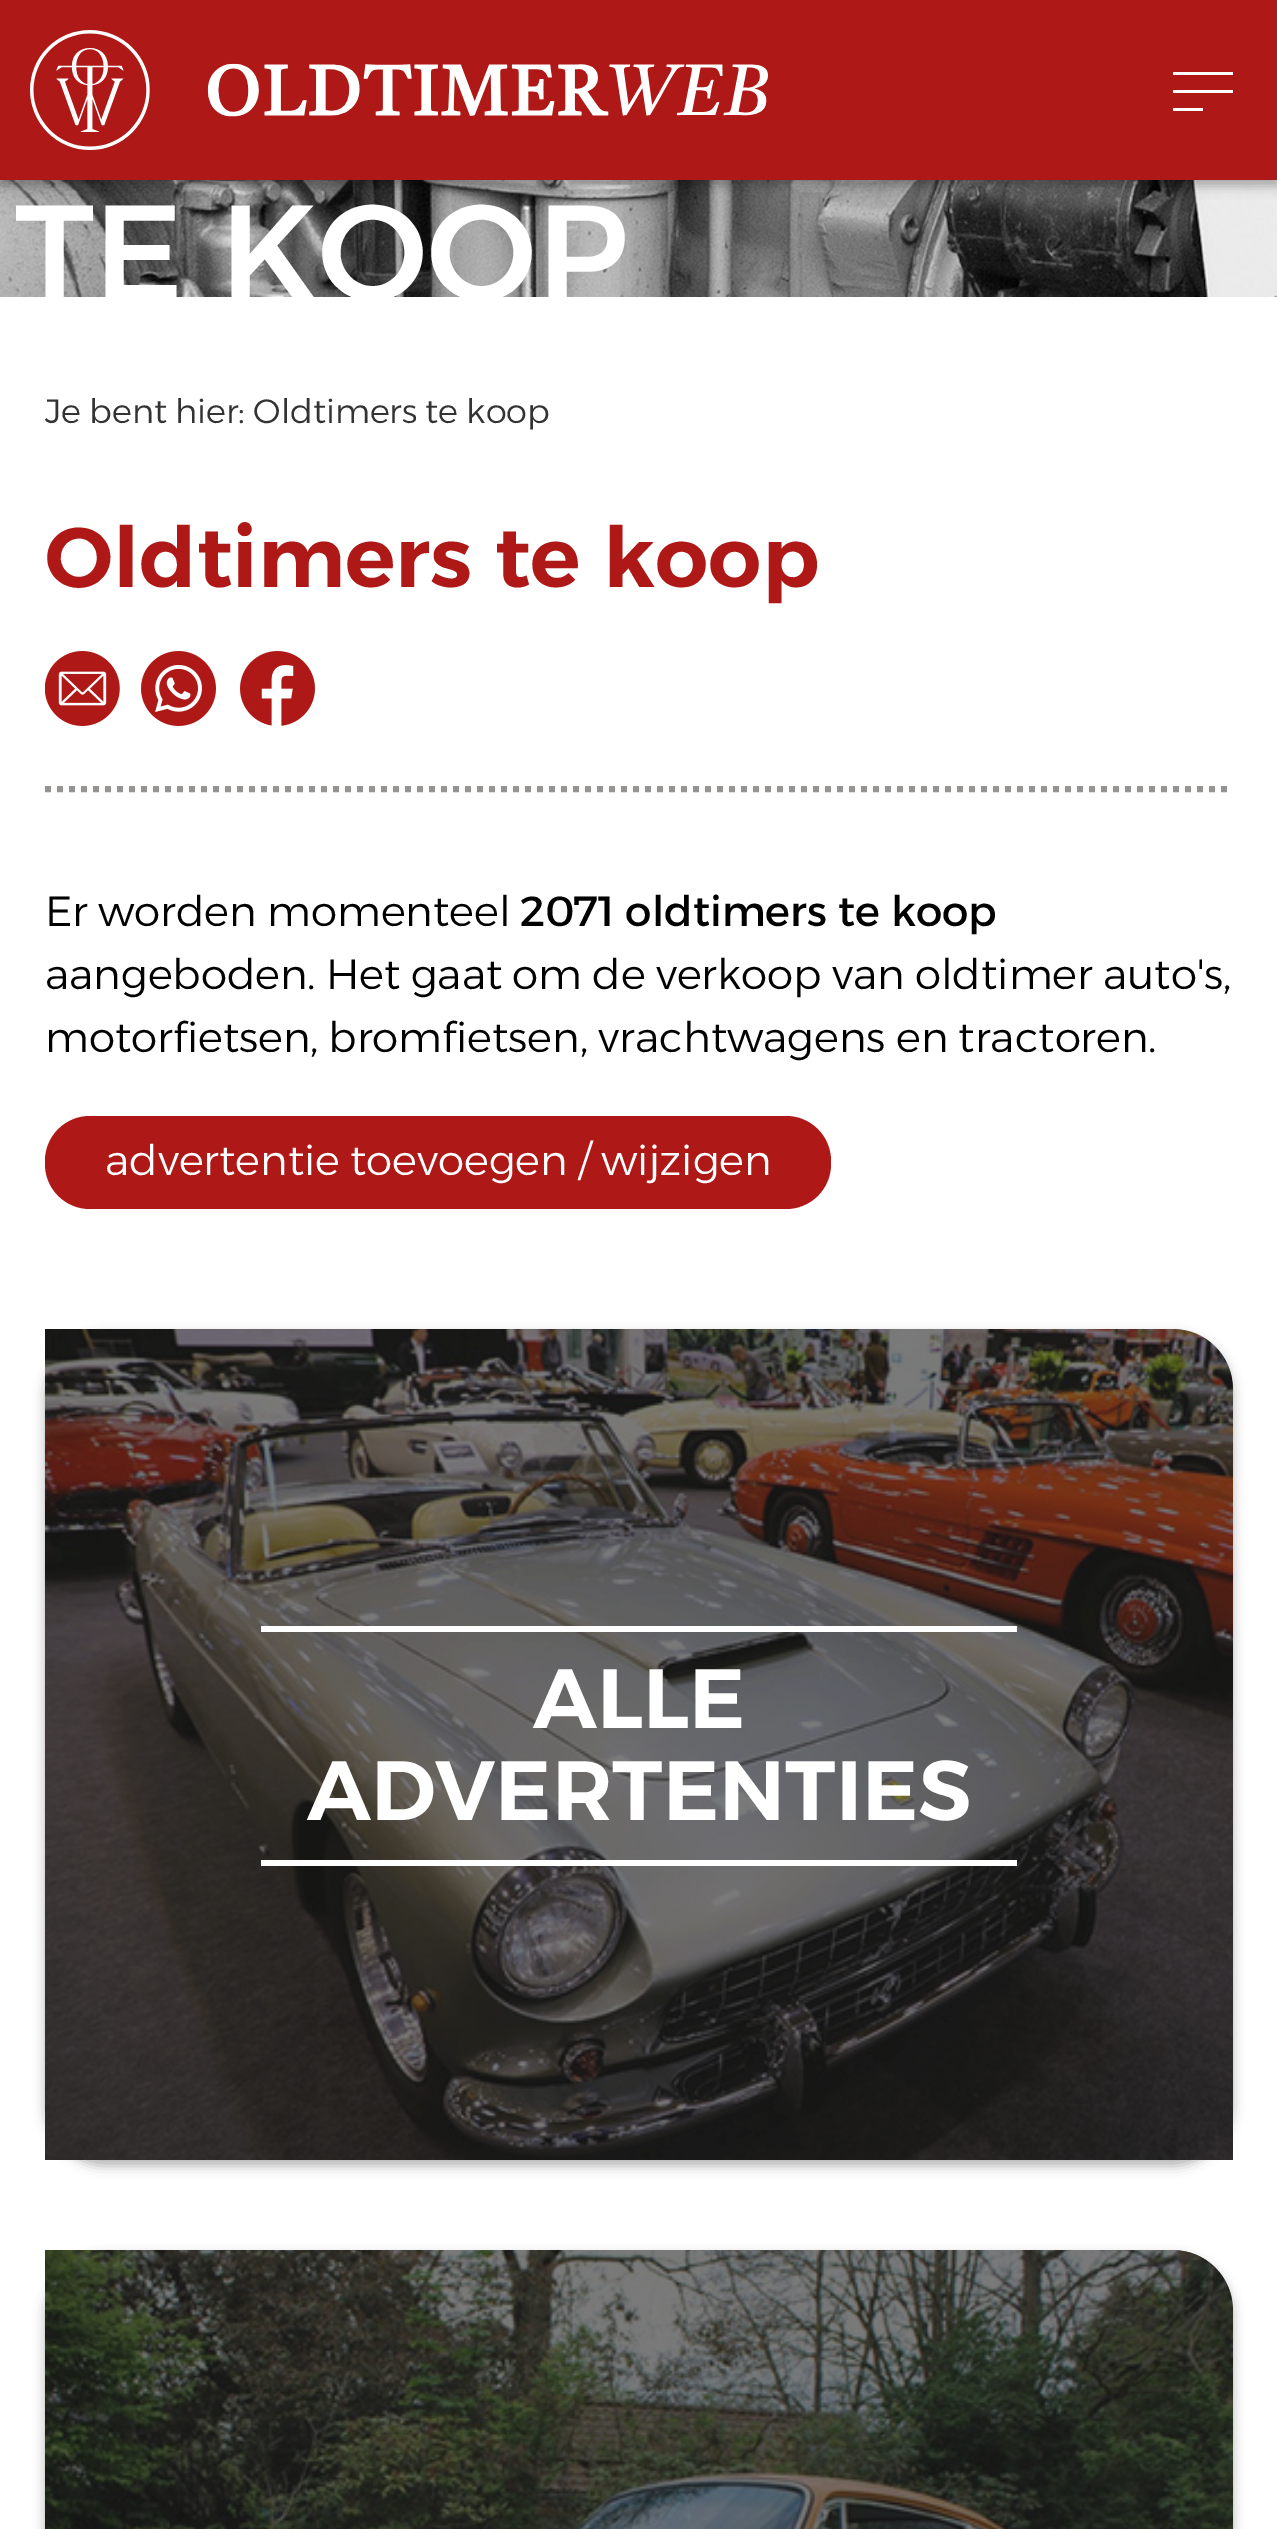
%!PS-Adobe-3.0
%%BoundingBox: 0 0 1277 2529
%%LanguageLevel: 3
%%Pages: 1
%%EndComments
%%BeginProlog
/setalpha { dup .setfillconstantalpha .setstrokeconstantalpha } def
/rrect { 5 dict begin { /r /h /w /y /x } { exch def } forall
  x r add y moveto x w add y 2 copy h add r arct x w add y h add x 1 index r arct
  x y h add x y r arct x y 2 copy exch w add exch r arct closepath end } def
/softshadow { 12 dict begin { /a /b /q /h /w /y /x } { exch def } forall gsave /was 0 def
  9 -2 -9 { dup b mul 4 div /e exch def 1 sub .425 mul 2.718 exch exp 1 add a .99 .min exch div /now exch def
    1 1 now sub 1 was sub div sub setalpha /was now def
    w h .min e 2 mul add 0 gt { x e sub y e sub w e 2 mul add h e 2 mul add
      q e add b .6 mul add w h .min 2 div e add .min 0 .max rrect fill } if } for grestore end } def
/drawimage { 5 dict begin { /h /w /y /x /name } { exch def } forall
  gsave x y translate w h scale
  w h 8 [w 0 0 h 0 0] name (r) file false 3 colorimage grestore end } def
%%EndProlog
%%BeginSetup
<< /PageSize [1277 2529] /PageUsesTransparency true >> setpagedevice
%%EndSetup
%%Page: 1 1
0 .pushpdf14devicefilter
0 2529 translate 1 -1 scale
4 setmiterlimit
1 setgray
0 0 1277 2529 rectfill
(images/2.raw) 0 180 1277 117 drawimage
0 setgray
0 6 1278 180 0 6 0.3 softshadow
0.682 0.098 0.09 setrgbcolor
0 0 1277 180 rectfill
(images/1.raw) 30 30 738 120 drawimage
1 setgray
1173 72 60 3 rectfill
1173 90 60 3 rectfill
1173 108 30 3 rectfill
0.588 0.576 0.576 setrgbcolor
6 setlinewidth
[6 6] 0 setdash
newpath 45 789 moveto 1233 789 lineto stroke
(images/3.raw) 45 651 75 75 drawimage
(images/4.raw) 141 651 75 75 drawimage
(images/5.raw) 240 651 75 75 drawimage
0.682 0.098 0.09 setrgbcolor
45 1116 786 93 45 rrect fill
0 setgray
45 1335 1188 831 60 6 0.3 softshadow
0.133 setgray
newpath 45 1329 moveto 1173 1329 lineto 1206 1329 1233 1356 1233 1389 curveto 1233 2160 lineto 45 2160 lineto closepath fill
(images/6.raw) 45 1329 1188 831 drawimage
1 setgray
261 1626 756 6 rectfill
261 1860 756 6 rectfill
0 setgray
45 2256 1188 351 60 6 0.3 softshadow
0.133 setgray
newpath 45 2250 moveto 1173 2250 lineto 1206 2250 1233 2277 1233 2310 curveto 1233 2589 lineto 45 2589 lineto closepath fill
(images/7.raw) 45 2250 1188 279 drawimage
/Alexandria-Medium [135 0 0 -135 0 0] selectfont
1 setgray
15 300 moveto (TE KOOP) show
/Alexandria-Light [33.6 0 0 -33.6 0 0] selectfont
0.2 setgray
45 423 moveto (Je bent hier: Oldtimers te koop) show
/Alexandria-SemiBold [84 0 0 -84 0 0] selectfont
0.682 0.098 0.09 setrgbcolor
45 587 moveto (Oldtimers te koop) show
/Alexandria-Light [42 0 0 -42 0 0] selectfont
0 setgray
45 926 moveto (Er worden momenteel) show
/Alexandria-Regular [42 0 0 -42 0 0] selectfont
520 926 moveto (2071 oldtimers te koop) show
/Alexandria-Light [42 0 0 -42 0 0] selectfont
45 989 moveto (aangeboden. Het gaat om de verkoop) show
832 989 moveto (van oldtimer auto's) show
1223 989 moveto (,) show
45 1052 moveto (motorfietsen) show
310 1052 moveto (, bromfietsen) show
580 1052 moveto (, vrachtwagens) show
896 1052 moveto (en tractoren) show
1148 1052 moveto (.) show
1 setgray
105 1175 moveto (advertentie toevoegen / wijzigen) show
/Alexandria-SemiBold [84 0 0 -84 0 0] selectfont
533 1728 moveto (ALLE) show
307 1820 moveto (ADVERTENTIES) show
.poppdf14devicefilter showpage
%%EOF
